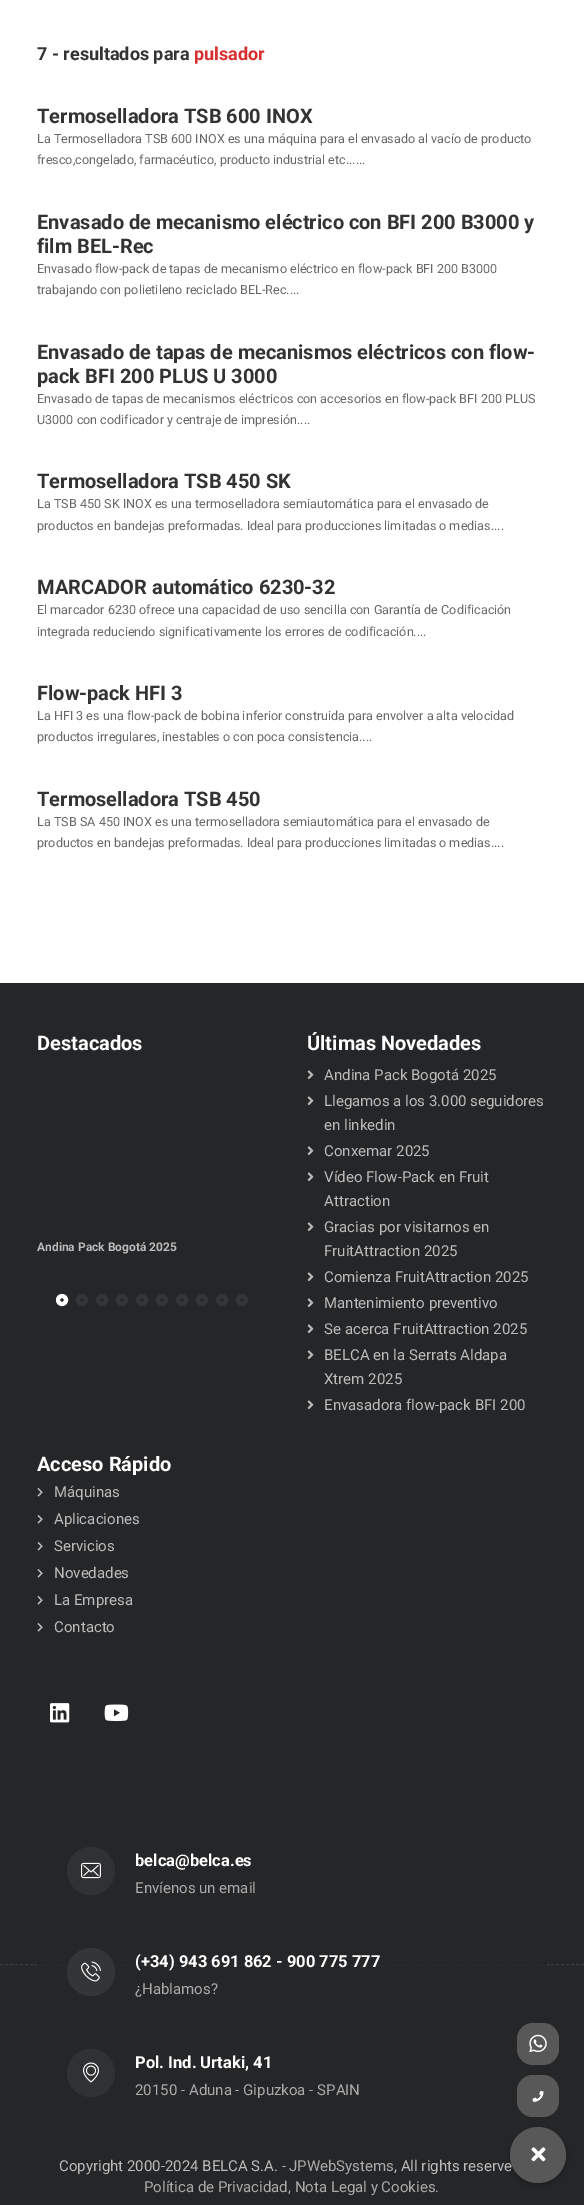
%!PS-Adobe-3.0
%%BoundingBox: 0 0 584 2205
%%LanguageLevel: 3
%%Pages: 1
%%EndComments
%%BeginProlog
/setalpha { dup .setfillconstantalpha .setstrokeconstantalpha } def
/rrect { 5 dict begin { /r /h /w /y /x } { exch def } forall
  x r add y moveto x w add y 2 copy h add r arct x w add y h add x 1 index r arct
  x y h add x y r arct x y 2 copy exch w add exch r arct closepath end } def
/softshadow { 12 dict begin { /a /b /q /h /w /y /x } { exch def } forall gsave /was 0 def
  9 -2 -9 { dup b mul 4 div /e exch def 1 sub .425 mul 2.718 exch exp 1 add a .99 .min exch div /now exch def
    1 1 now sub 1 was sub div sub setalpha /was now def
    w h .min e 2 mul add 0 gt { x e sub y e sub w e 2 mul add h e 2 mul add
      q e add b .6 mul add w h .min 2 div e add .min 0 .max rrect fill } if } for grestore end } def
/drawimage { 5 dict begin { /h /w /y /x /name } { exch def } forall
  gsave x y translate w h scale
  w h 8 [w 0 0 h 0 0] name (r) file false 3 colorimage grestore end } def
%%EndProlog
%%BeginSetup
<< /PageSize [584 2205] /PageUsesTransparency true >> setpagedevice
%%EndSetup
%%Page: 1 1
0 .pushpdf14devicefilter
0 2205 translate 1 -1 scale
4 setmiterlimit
1 setgray
0 0 584 2205 rectfill
0.145 0.149 0.157 setrgbcolor
0 983 584 1222 rectfill
1 setgray
4 setlinewidth
newpath 62 1300 4 0 360 arc closepath stroke
0.204 0.208 0.22 setrgbcolor
newpath 82 1300 4 0 360 arc closepath stroke
newpath 102 1300 4 0 360 arc closepath stroke
newpath 122 1300 4 0 360 arc closepath stroke
newpath 142 1300 4 0 360 arc closepath stroke
newpath 162 1300 4 0 360 arc closepath stroke
newpath 182 1300 4 0 360 arc closepath stroke
newpath 202 1300 4 0 360 arc closepath stroke
newpath 222 1300 4 0 360 arc closepath stroke
newpath 242 1300 4 0 360 arc closepath stroke
(images/1.raw) 307 1070 7 10 drawimage
(images/1.raw) 307 1096 7 10 drawimage
(images/1.raw) 307 1146 7 10 drawimage
(images/1.raw) 307 1172 7 10 drawimage
(images/1.raw) 307 1222 7 10 drawimage
(images/1.raw) 307 1272 7 10 drawimage
(images/1.raw) 307 1298 7 10 drawimage
(images/1.raw) 307 1324 7 10 drawimage
(images/1.raw) 307 1350 7 10 drawimage
(images/1.raw) 307 1400 7 10 drawimage
(images/2.raw) 37 1488 6 9 drawimage
(images/2.raw) 37 1515 6 9 drawimage
(images/2.raw) 37 1542 6 9 drawimage
(images/2.raw) 37 1569 6 9 drawimage
(images/2.raw) 37 1596 6 9 drawimage
(images/2.raw) 37 1623 6 9 drawimage
(images/3.raw) 50 1703 20 20 drawimage
(images/4.raw) 104 1704 25 17 drawimage
0.231 0.235 0.247 setrgbcolor
1 setlinewidth
[3 2.01] 0 setdash
newpath 0 1964.5 moveto 584 1964.5 lineto stroke
0.145 0.149 0.157 setrgbcolor
37 1964 510 1 rectfill
0.188 0.192 0.2 setrgbcolor
newpath 91 1871 24 0 360 arc closepath fill
(images/5.raw) 81 1862 20 17 drawimage
0.204 0.208 0.216 setrgbcolor
newpath 91 1972 24 0 360 arc closepath fill
(images/6.raw) 81 1961 20 21 drawimage
0.188 0.192 0.2 setrgbcolor
newpath 91 2073 24 0 360 arc closepath fill
(images/7.raw) 83 2062 16 21 drawimage
0.345 setgray
517 2023 42 42 16 rrect fill
(images/8.raw) 529 2034 18 19 drawimage
517 2075 42 42 16 rrect fill
(images/9.raw) 532 2090 12 12 drawimage
0 setgray
509 2128 58 58 29 3 0.2 softshadow
/Roboto-Bold [18 0 0 -18 0 0] selectfont
0.2 setgray
37 60 moveto (7 - resultados para) show
0.847 0.188 0.188 setrgbcolor
194 60 moveto (pulsador) show
/Roboto-Bold [20 0 0 -20 0 0] selectfont
0.2 setgray
37 123 moveto (Termoselladora TSB 600 INOX) show
/Roboto-Regular [12.6 0 0 -12.6 0 0] selectfont
0.404 setgray
37 143 moveto (La Termoselladora TSB 600 INOX es una máquina para el envasado al vacío de producto) show
37 164 moveto (fresco,congelado, farmacéutico, producto industrial etc......) show
/Roboto-Bold [20 0 0 -20 0 0] selectfont
0.2 setgray
37 229 moveto (Envasado de mecanismo eléctrico con BFI 200 B3000 y) show
37 253 moveto (film BEL-Rec) show
/Roboto-Regular [12.6 0 0 -12.6 0 0] selectfont
0.404 setgray
37 273 moveto (Envasado flow-pack de tapas de mecanismo eléctrico en flow-pack BFI 200 B3000) show
37 294 moveto (trabajando con polietileno reciclado BEL-Rec....) show
/Roboto-Bold [20 0 0 -20 0 0] selectfont
0.2 setgray
37 359 moveto (Envasado de tapas de mecanismos eléctricos con flow-) show
37 383 moveto (pack BFI 200 PLUS U 3000) show
/Roboto-Regular [12.6 0 0 -12.6 0 0] selectfont
0.404 setgray
37 403 moveto (Envasado de tapas de mecanismos eléctricos con accesorios en flow-pack BFI 200 PLUS) show
37 424 moveto (U3000 con codificador y centraje de impresión....) show
/Roboto-Bold [20 0 0 -20 0 0] selectfont
0.2 setgray
37 488 moveto (Termoselladora TSB 450 SK) show
/Roboto-Regular [12.6 0 0 -12.6 0 0] selectfont
0.404 setgray
37 508 moveto (La TSB 450 SK INOX es una termoselladora semiautomática para el envasado de) show
37 530 moveto (productos en bandejas preformadas. Ideal para producciones limitadas o medias....) show
/Roboto-Bold [20 0 0 -20 0 0] selectfont
0.2 setgray
37 594 moveto (MARCADOR automático 6230-32) show
/Roboto-Regular [12.6 0 0 -12.6 0 0] selectfont
0.404 setgray
37 614 moveto (El marcador 6230 ofrece una capacidad de uso sencilla con Garantía de Codificación) show
37 636 moveto (integrada reduciendo significativamente los errores de codificación....) show
/Roboto-Bold [20 0 0 -20 0 0] selectfont
0.2 setgray
37 700 moveto (Flow-pack HFI 3) show
/Roboto-Regular [12.6 0 0 -12.6 0 0] selectfont
0.404 setgray
37 720 moveto (La HFI 3 es una flow-pack de bobina inferior construida para envolver a alta velocidad) show
37 741 moveto (productos irregulares, inestables o con poca consistencia....) show
/Roboto-Bold [20 0 0 -20 0 0] selectfont
0.2 setgray
37 806 moveto (Termoselladora TSB 450) show
/Roboto-Regular [12.6 0 0 -12.6 0 0] selectfont
0.404 setgray
37 826 moveto (La TSB SA 450 INOX es una termoselladora semiautomática para el envasado de) show
37 847 moveto (productos en bandejas preformadas. Ideal para producciones limitadas o medias....) show
/Roboto-Bold [20 0 0 -20 0 0] selectfont
1 setgray
37 1050 moveto (Destacados) show
/Roboto-Bold [12 0 0 -12 0 0] selectfont
0.733 setgray
37 1251 moveto (Andina Pack Bogotá 2025) show
/Roboto-Bold [20 0 0 -20 0 0] selectfont
1 setgray
307 1050 moveto (Últimas Novedades) show
/Roboto-Regular [15 0 0 -15 0 0] selectfont
0.733 setgray
324 1080 moveto (Andina Pack Bogotá 2025) show
324 1106 moveto (Llegamos a los 3.000 seguidores) show
324 1130 moveto (en linkedin) show
324 1156 moveto (Conxemar 2025) show
324 1182 moveto (Vídeo Flow-Pack en Fruit) show
324 1206 moveto (Attraction) show
324 1232 moveto (Gracias por visitarnos en) show
324 1256 moveto (FruitAttraction 2025) show
324 1282 moveto (Comienza FruitAttraction 2025) show
324 1308 moveto (Mantenimiento preventivo) show
324 1334 moveto (Se acerca FruitAttraction 2025) show
324 1360 moveto (BELCA en la Serrats Aldapa) show
324 1384 moveto (Xtrem 2025) show
324 1410 moveto (Envasadora flow-pack BFI 200) show
/Roboto-Bold [20 0 0 -20 0 0] selectfont
1 setgray
37 1471 moveto (Acceso Rápido) show
/Roboto-Regular [15 0 0 -15 0 0] selectfont
0.733 setgray
54 1497 moveto (Máquinas) show
54 1524 moveto (Aplicaciones) show
54 1551 moveto (Servicios) show
54 1578 moveto (Novedades) show
54 1605 moveto (La Empresa) show
54 1632 moveto (Contacto) show
/Roboto-Bold [16.5 0 0 -16.5 0 0] selectfont
1 setgray
135 1866 moveto (belca@belca.es) show
/Roboto-Regular [15 0 0 -15 0 0] selectfont
0.667 setgray
135 1893 moveto (Envíenos un email) show
/Roboto-Bold [16.5 0 0 -16.5 0 0] selectfont
1 setgray
135 1967 moveto (\(+34\) 943 691 862 - 900 775 777) show
/Roboto-Regular [15 0 0 -15 0 0] selectfont
0.667 setgray
135 1994 moveto (¿Hablamos?) show
/Roboto-Bold [16.5 0 0 -16.5 0 0] selectfont
1 setgray
135 2068 moveto (Pol. Ind. Urtaki, 41) show
/Roboto-Regular [15 0 0 -15 0 0] selectfont
0.667 setgray
135 2095 moveto (20150 - Aduna - Gipuzkoa - SPAIN) show
0.733 setgray
59 2171 moveto (Copyright 2000-2024 BELCA S.A. -) show
0.667 setgray
289 2171 moveto (JPWebSystems) show
0.733 setgray
394 2171 moveto (, All rights reserve) show
0.667 setgray
144 2192 moveto (Política de Privacidad, Nota Legal y Cookies.) show
0.345 setgray
newpath 538 2155 28 0 360 arc closepath fill
(images/10.raw) 531 2147 15 15 drawimage
.poppdf14devicefilter showpage
%%EOF
